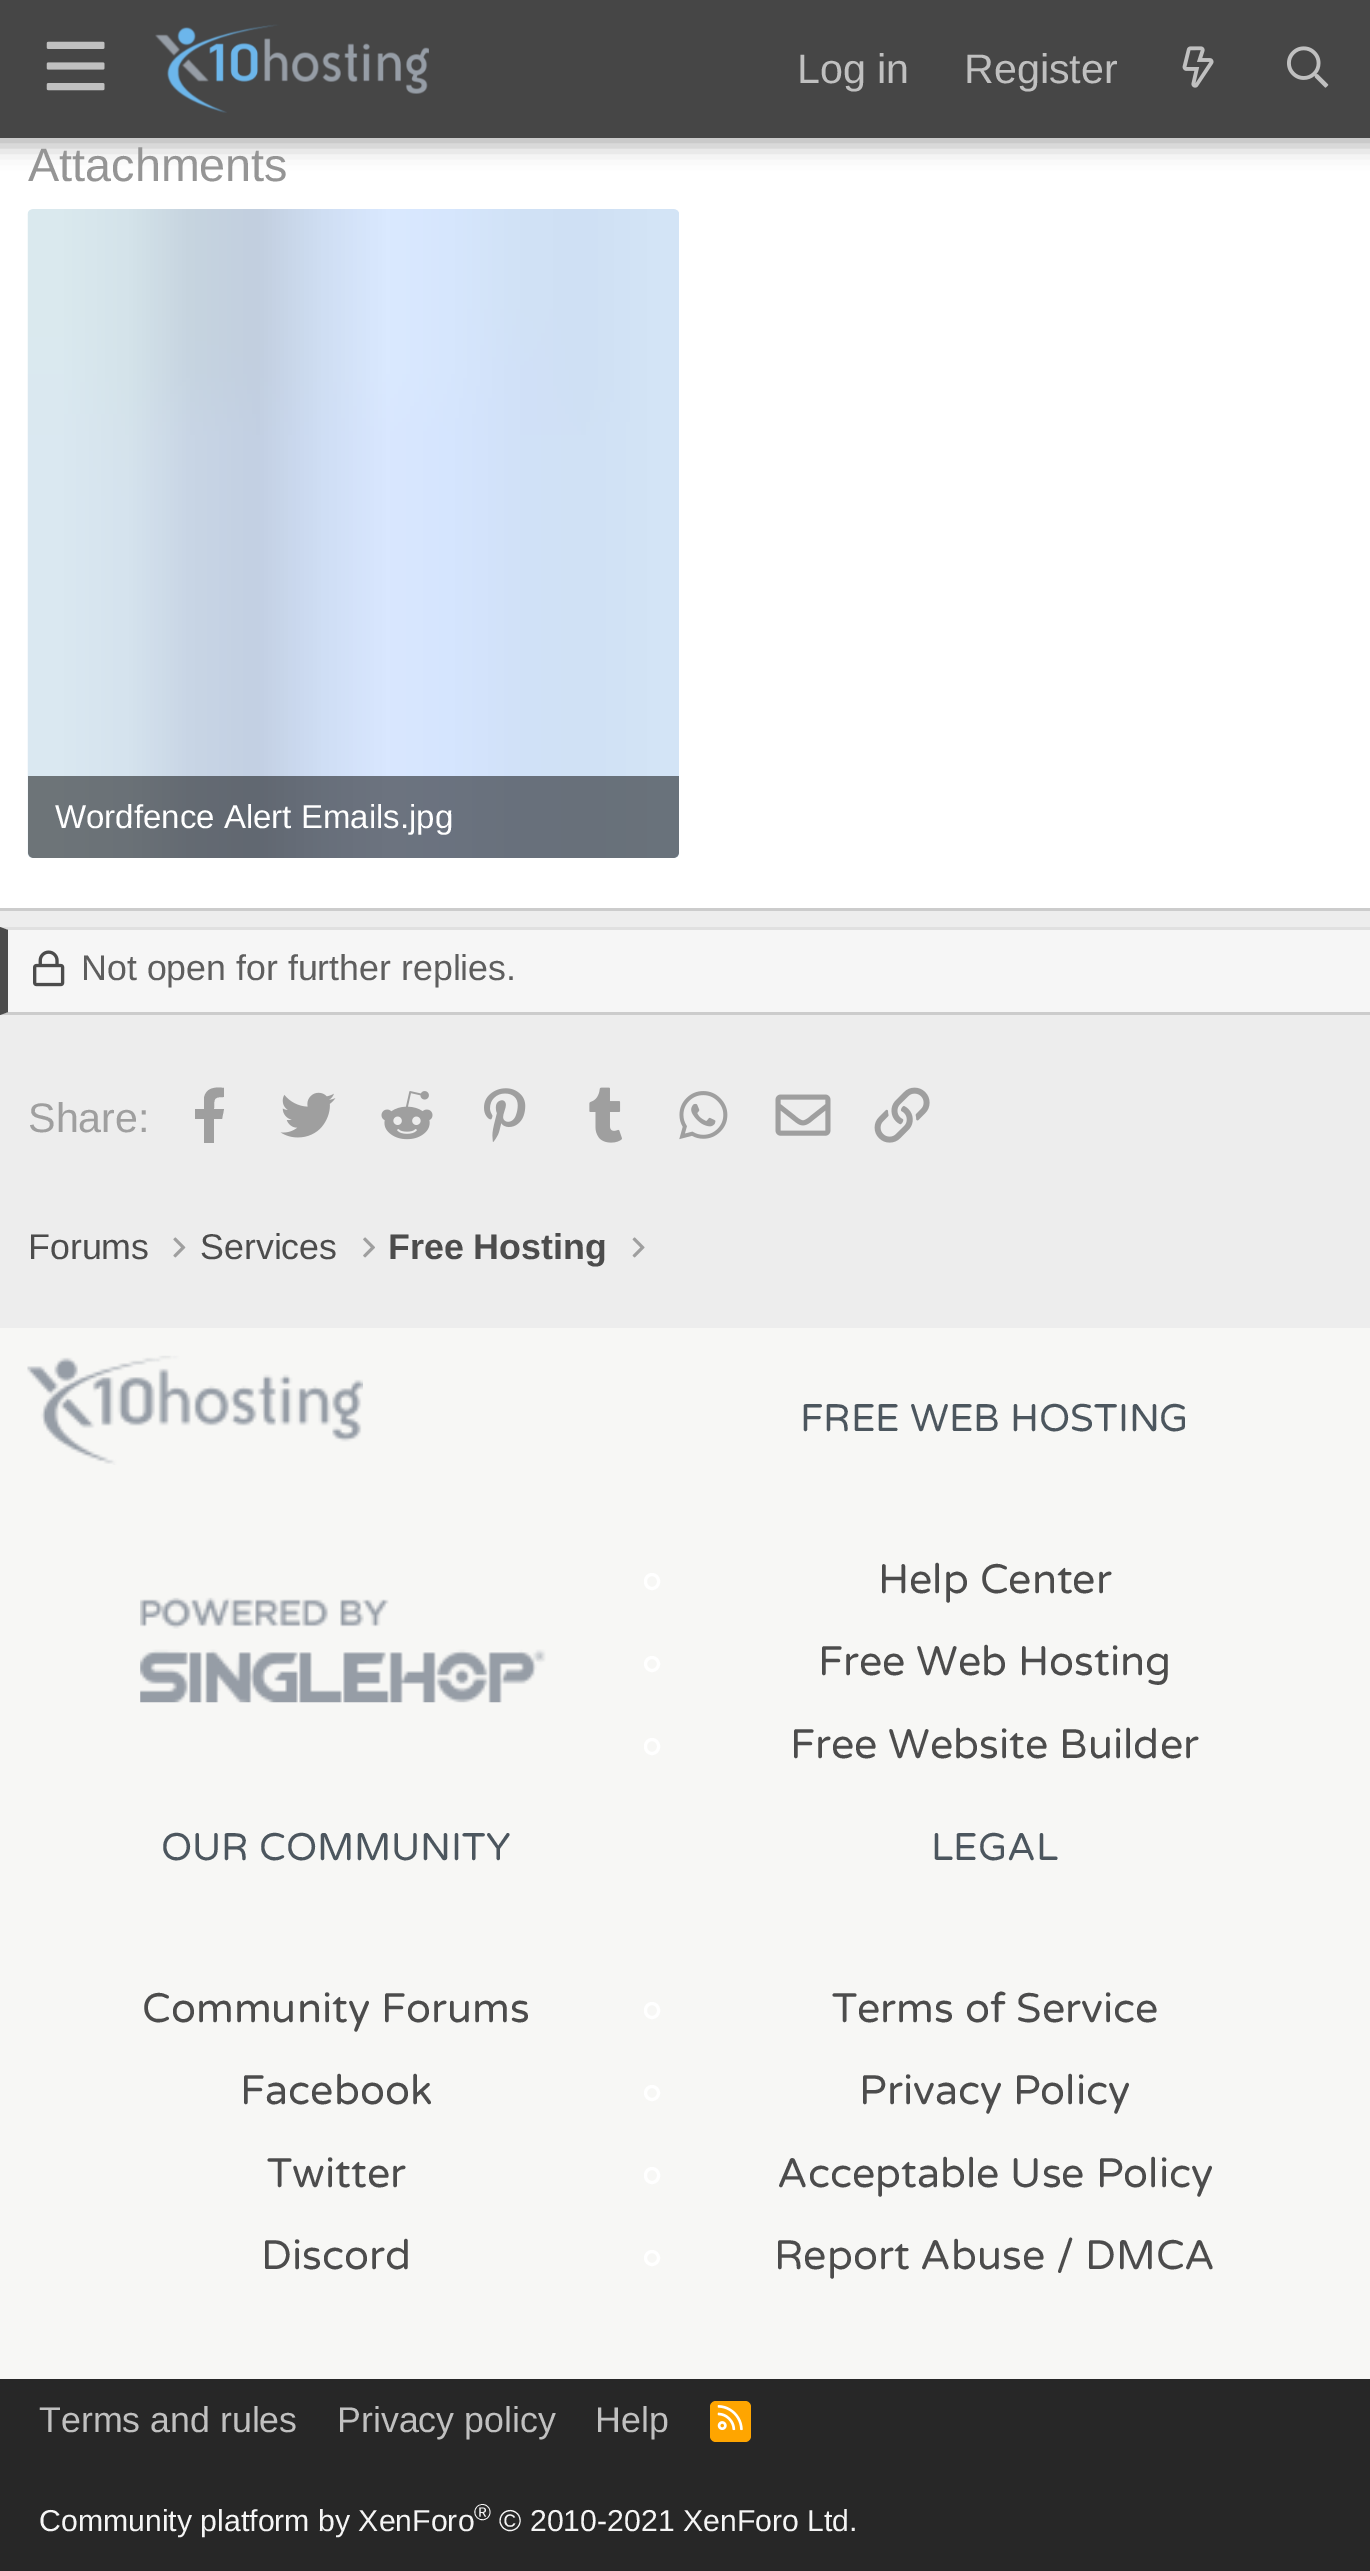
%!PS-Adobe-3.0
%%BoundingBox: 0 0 1370 2571
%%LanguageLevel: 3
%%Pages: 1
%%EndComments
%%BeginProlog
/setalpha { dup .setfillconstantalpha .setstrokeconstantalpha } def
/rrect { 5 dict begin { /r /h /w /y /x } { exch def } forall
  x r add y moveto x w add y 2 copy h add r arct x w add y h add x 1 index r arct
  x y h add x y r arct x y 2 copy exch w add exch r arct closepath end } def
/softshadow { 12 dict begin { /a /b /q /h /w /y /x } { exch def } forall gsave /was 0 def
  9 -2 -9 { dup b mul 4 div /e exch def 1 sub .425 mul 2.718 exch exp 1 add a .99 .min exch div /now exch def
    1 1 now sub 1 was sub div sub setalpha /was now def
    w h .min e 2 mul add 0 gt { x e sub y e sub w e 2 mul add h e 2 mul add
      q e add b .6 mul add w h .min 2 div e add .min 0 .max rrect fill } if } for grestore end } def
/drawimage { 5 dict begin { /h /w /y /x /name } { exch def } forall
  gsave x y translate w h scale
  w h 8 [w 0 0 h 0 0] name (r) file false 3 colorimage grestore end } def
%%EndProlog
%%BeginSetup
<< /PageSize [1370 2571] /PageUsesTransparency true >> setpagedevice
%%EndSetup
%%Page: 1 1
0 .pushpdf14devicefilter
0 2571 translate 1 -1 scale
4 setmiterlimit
0.929 setgray
0 0 1370 2571 rectfill
1 setgray
0 138 1370 770 rectfill
0 setgray
-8 -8 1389 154 0 11 0.3 softshadow
0.275 setgray
0 0 1370 138 rectfill
(images/1.raw) 46 41 59 50 drawimage
(images/2.raw) 155 24 274 89 drawimage
(images/3.raw) 1182 46 32 42 drawimage
(images/4.raw) 1287 46 42 42 drawimage
0.8 setgray
0 908 1370 3 rectfill
(images/5.raw) 27 209 652 649 drawimage
0.5 setalpha
0 setgray
newpath 28 776 moveto 679 776 lineto 679 852 lineto 679 855.5 676.5 858 673 858 curveto 34 858 lineto 30.5 858 28 855.5 28 852 curveto closepath fill
1 setalpha
0.965 setgray
0 927 1370 88 rectfill
0.878 setgray
newpath 0 927 moveto 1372 927 lineto 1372 930 lineto 8 930 lineto closepath fill
0.8 setgray
newpath 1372 1015 moveto 0 1015 lineto 8 1012 lineto 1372 1012 lineto closepath fill
0.298 setgray
newpath 0 1015 moveto 0 927 lineto 8 930 lineto 8 1012 lineto closepath fill
(images/6.raw) 33 950 32 37 drawimage
0.624 setgray
newpath 222 1119 moveto 214 1119 lineto 214 1143 lineto 204 1143 lineto 204 1119 lineto 195 1119 lineto 195 1109 lineto 204 1109 lineto 204 1098 lineto 206 1087 216 1087 224 1088 curveto 224 1097 lineto 214 1097 214 1098 214 1109 curveto 224 1109 lineto closepath fill
(images/7.raw) 280 1092 56 46 drawimage
(images/8.raw) 381 1091 52 49 drawimage
(images/9.raw) 484 1088 42 54 drawimage
(images/10.raw) 589 1087 33 56 drawimage
(images/11.raw) 679 1091 49 49 drawimage
(images/12.raw) 775 1094 56 42 drawimage
(images/13.raw) 874 1087 56 56 drawimage
(images/14.raw) 173 1237 13 21 drawimage
(images/15.raw) 363 1237 12 21 drawimage
(images/16.raw) 632 1237 13 21 drawimage
0.969 0.969 0.961 setrgbcolor
0 1328 1370 1051 rectfill
(images/17.raw) 27 1355 336 110 drawimage
(images/18.raw) 140 1597 406 106 drawimage
1 setgray
3 setlinewidth
645.5 1574.5 13 14 6.5 rrect stroke
newpath 652 1664 6.5 0 360 arc closepath stroke
645.5 1739.5 13 14 6.5 rrect stroke
645.5 2003.5 13 14 6.5 rrect stroke
newpath 652 2093 6.5 0 360 arc closepath stroke
645.5 2168.5 13 14 6.5 rrect stroke
newpath 652 2258 6.5 0 360 arc closepath stroke
0.153 setgray
0 2379 1370 192 rectfill
1 0.647 0 setrgbcolor
710 2401 41 41 6 rrect fill
(images/19.raw) 717 2405 26 26 drawimage
/LiberationSans-Regular [41.25 0 0 -41.25 0 0] selectfont
0.753 setgray
797 83 moveto (Log in) show
964 83 moveto (Register) show
/LiberationSans-Regular [46.75 0 0 -46.75 0 0] selectfont
0.584 setgray
28 181 moveto (Attachments) show
/LiberationSans-Regular [33 0 0 -33 0 0] selectfont
1 setgray
55 828 moveto (Wordfence Alert Emails.jpg) show
/LiberationSans-Regular [35.75 0 0 -35.75 0 0] selectfont
0.369 setgray
81 980 moveto (Not open for further replies.) show
/LiberationSans-Regular [41.25 0 0 -41.25 0 0] selectfont
0.624 setgray
28 1132 moveto (Share:) show
/LiberationSans-Regular [35.75 0 0 -35.75 0 0] selectfont
0.298 setgray
28 1259 moveto (Forums) show
200 1259 moveto (Services) show
/LiberationSans-Bold [35.75 0 0 -35.75 0 0] selectfont
388 1259 moveto (Free Hosting) show
/VarelaRound-Regular [38.5 0 0 -38.5 0 0] selectfont
0.298 0.337 0.369 setrgbcolor
800 1431 moveto (FREE WEB HOSTING) show
/VarelaRound-Regular [41.25 0 0 -41.25 0 0] selectfont
0.298 setgray
878 1593 moveto (Help Center) show
818 1675 moveto (Free Web Hosting) show
790 1758 moveto (Free Website Builder) show
/VarelaRound-Regular [38.5 0 0 -38.5 0 0] selectfont
0.298 0.337 0.369 setrgbcolor
161 1860 moveto (OUR COMMUNITY) show
/VarelaRound-Regular [41.25 0 0 -41.25 0 0] selectfont
0.298 setgray
142 2022 moveto (Community Forums) show
240 2104 moveto (Facebook) show
267 2187 moveto (Twitter) show
261 2269 moveto (Discord) show
/VarelaRound-Regular [38.5 0 0 -38.5 0 0] selectfont
0.298 0.337 0.369 setrgbcolor
931 1860 moveto (LEGAL) show
/VarelaRound-Regular [41.25 0 0 -41.25 0 0] selectfont
0.298 setgray
832 2022 moveto (Terms of Service) show
859 2104 moveto (Privacy Policy) show
777 2187 moveto (Acceptable Use Policy) show
774 2269 moveto (Report Abuse / DMCA) show
/LiberationSans-Regular [35.75 0 0 -35.75 0 0] selectfont
0.753 setgray
39 2432 moveto (Terms and rules) show
337 2432 moveto (Privacy policy) show
595 2432 moveto (Help) show
/LiberationSans-Regular [30.25 0 0 -30.25 0 0] selectfont
0.961 setgray
39 2531 moveto (Community platform by XenForo) show
/LiberationSans-Regular [23 0 0 -23 0 0] selectfont
474 2520 moveto (®) show
/LiberationSans-Regular [30.25 0 0 -30.25 0 0] selectfont
499 2531 moveto (© 2010-2021 XenForo Ltd.) show
.poppdf14devicefilter showpage
%%EOF
